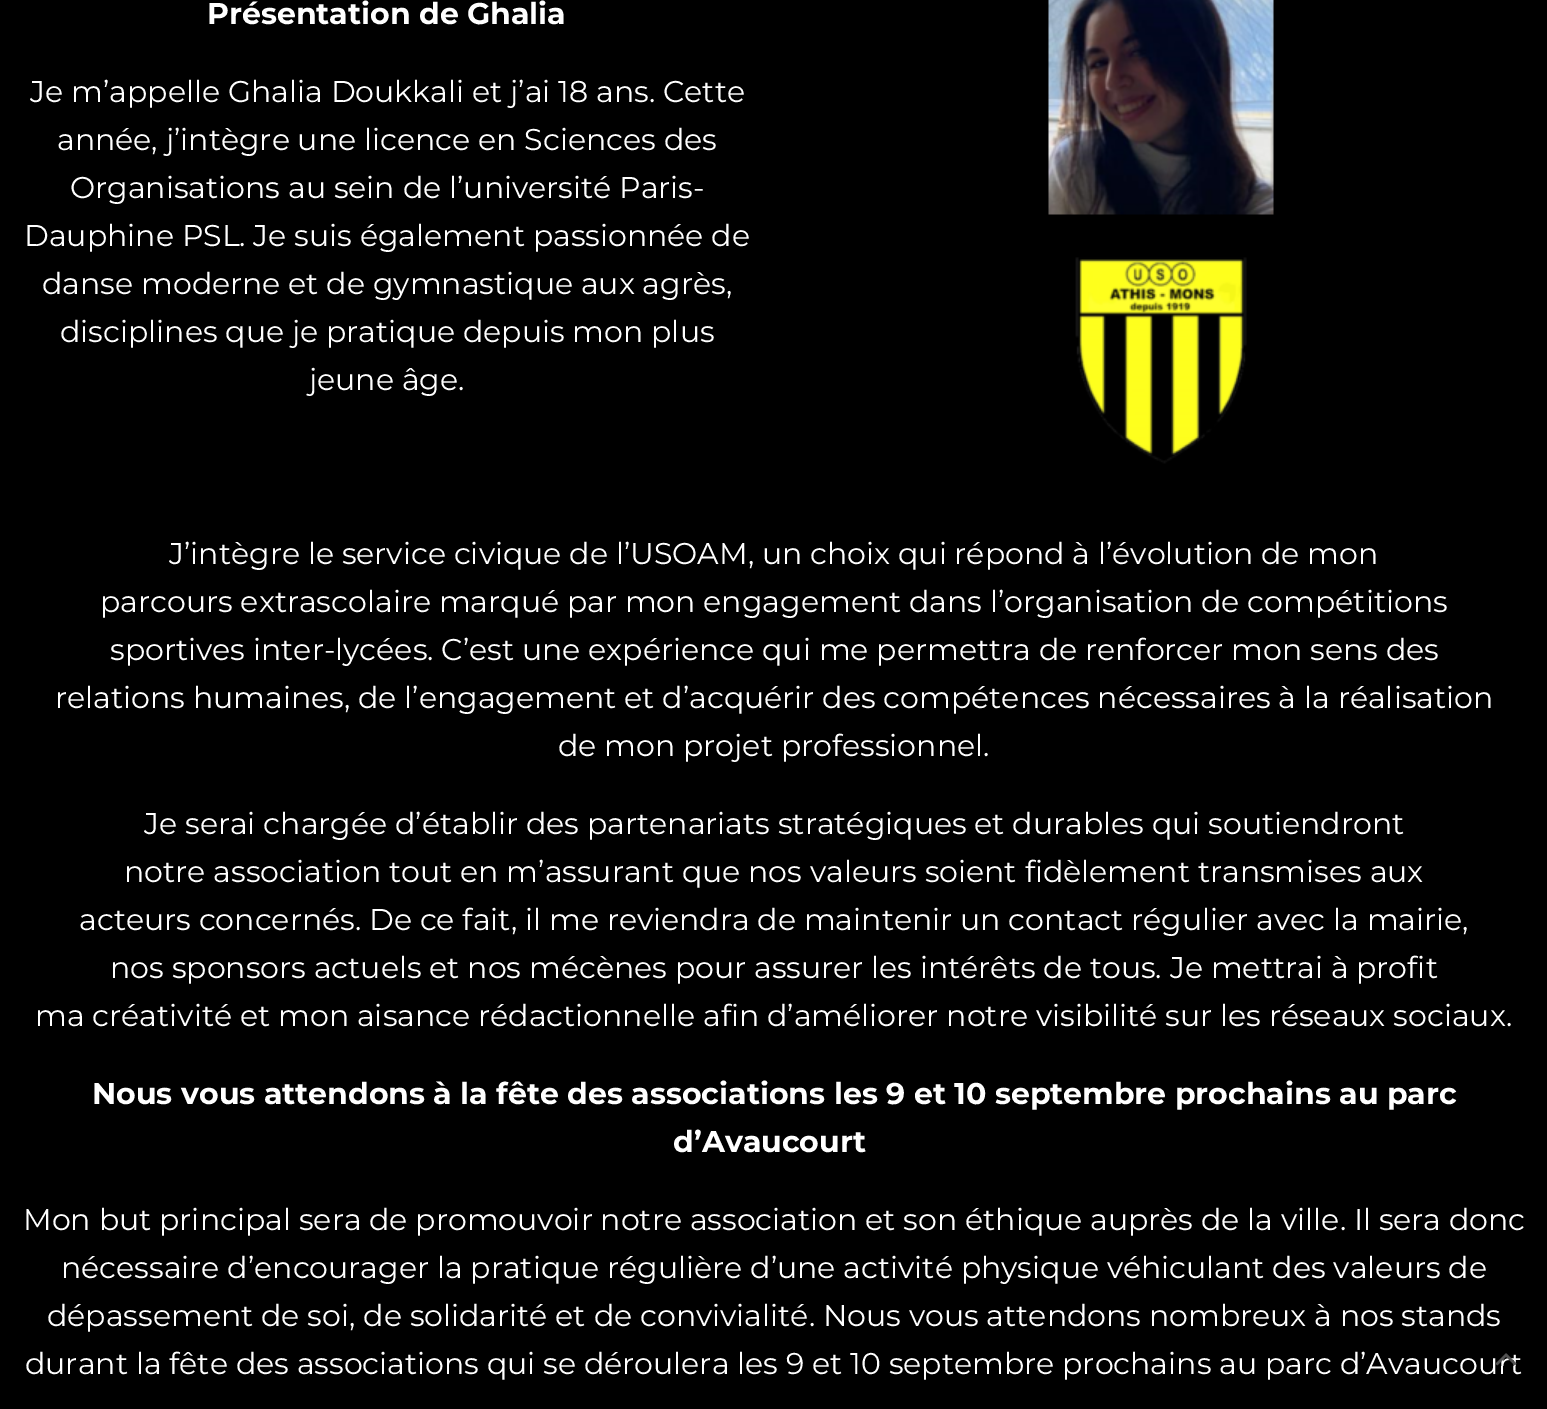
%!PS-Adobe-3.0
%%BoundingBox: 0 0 1547 1409
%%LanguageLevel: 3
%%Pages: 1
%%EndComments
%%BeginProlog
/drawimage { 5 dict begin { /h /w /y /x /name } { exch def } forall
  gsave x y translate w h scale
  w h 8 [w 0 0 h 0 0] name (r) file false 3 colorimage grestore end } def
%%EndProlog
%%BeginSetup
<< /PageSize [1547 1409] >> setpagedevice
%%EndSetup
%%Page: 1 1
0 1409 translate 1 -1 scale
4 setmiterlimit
0 setgray
0 0 1547 1409 rectfill
(images/1.raw) 1048 0 226 215 drawimage
(images/2.raw) 1075 257 172 207 drawimage
/Montserrat-Bold [30 0 0 -30 0 0] selectfont
1 setgray
207 24 moveto (Présentation de Ghalia) show
/Montserrat-Regular [30 0 0 -30 0 0] selectfont
30 102 moveto (Je m’appelle Ghalia Doukkali et j’ai 18 ans. Cette) show
57 150 moveto (année, j’intègre une licence en Sciences des) show
70 198 moveto (Organisations au sein de l’université Paris-) show
24 246 moveto (Dauphine PSL. Je suis également passionnée de) show
42 294 moveto (danse moderne et de gymnastique aux agrès,) show
60 342 moveto (disciplines que je pratique depuis mon plus) show
309 390 moveto (jeune âge.) show
169 564 moveto (J’intègre le service civique de l’USOAM, un choix qui répond à l’évolution de mon) show
100 612 moveto (parcours extrascolaire marqué par mon engagement dans l’organisation de compétitions) show
110 660 moveto (sportives inter-lycées. C’est une expérience qui me permettra de renforcer mon sens des) show
55 708 moveto (relations humaines, de l’engagement et d’acquérir des compétences nécessaires à la réalisation) show
558 756 moveto (de mon projet professionnel.) show
144 834 moveto (Je serai chargée d’établir des partenariats stratégiques et durables qui soutiendront) show
124 882 moveto (notre association tout en m’assurant que nos valeurs soient fidèlement transmises aux) show
79 930 moveto (acteurs concernés. De ce fait, il me reviendra de maintenir un contact régulier avec la mairie,) show
110 978 moveto (nos sponsors actuels et nos mécènes pour assurer les intérêts de tous. Je mettrai à profit) show
35 1026 moveto (ma créativité et mon aisance rédactionnelle afin d’améliorer notre visibilité sur les réseaux sociaux.) show
/Montserrat-Bold [30 0 0 -30 0 0] selectfont
92 1104 moveto (Nous vous attendons à la fête des associations les 9 et 10 septembre prochains au parc) show
673 1152 moveto (d’Avaucourt) show
/Montserrat-Regular [30 0 0 -30 0 0] selectfont
23 1230 moveto (Mon but principal sera de promouvoir notre association et son éthique auprès de la ville. Il sera donc) show
61 1278 moveto (nécessaire d’encourager la pratique régulière d’une activité physique véhiculant des valeurs de) show
47 1326 moveto (dépassement de soi, de solidarité et de convivialité. Nous vous attendons nombreux à nos stands) show
25 1374 moveto (durant la fête des associations qui se déroulera les 9 et 10 septembre prochains au parc d’Avaucourt) show
(images/3.raw) 1496 1353 21 13 drawimage
showpage
%%EOF
